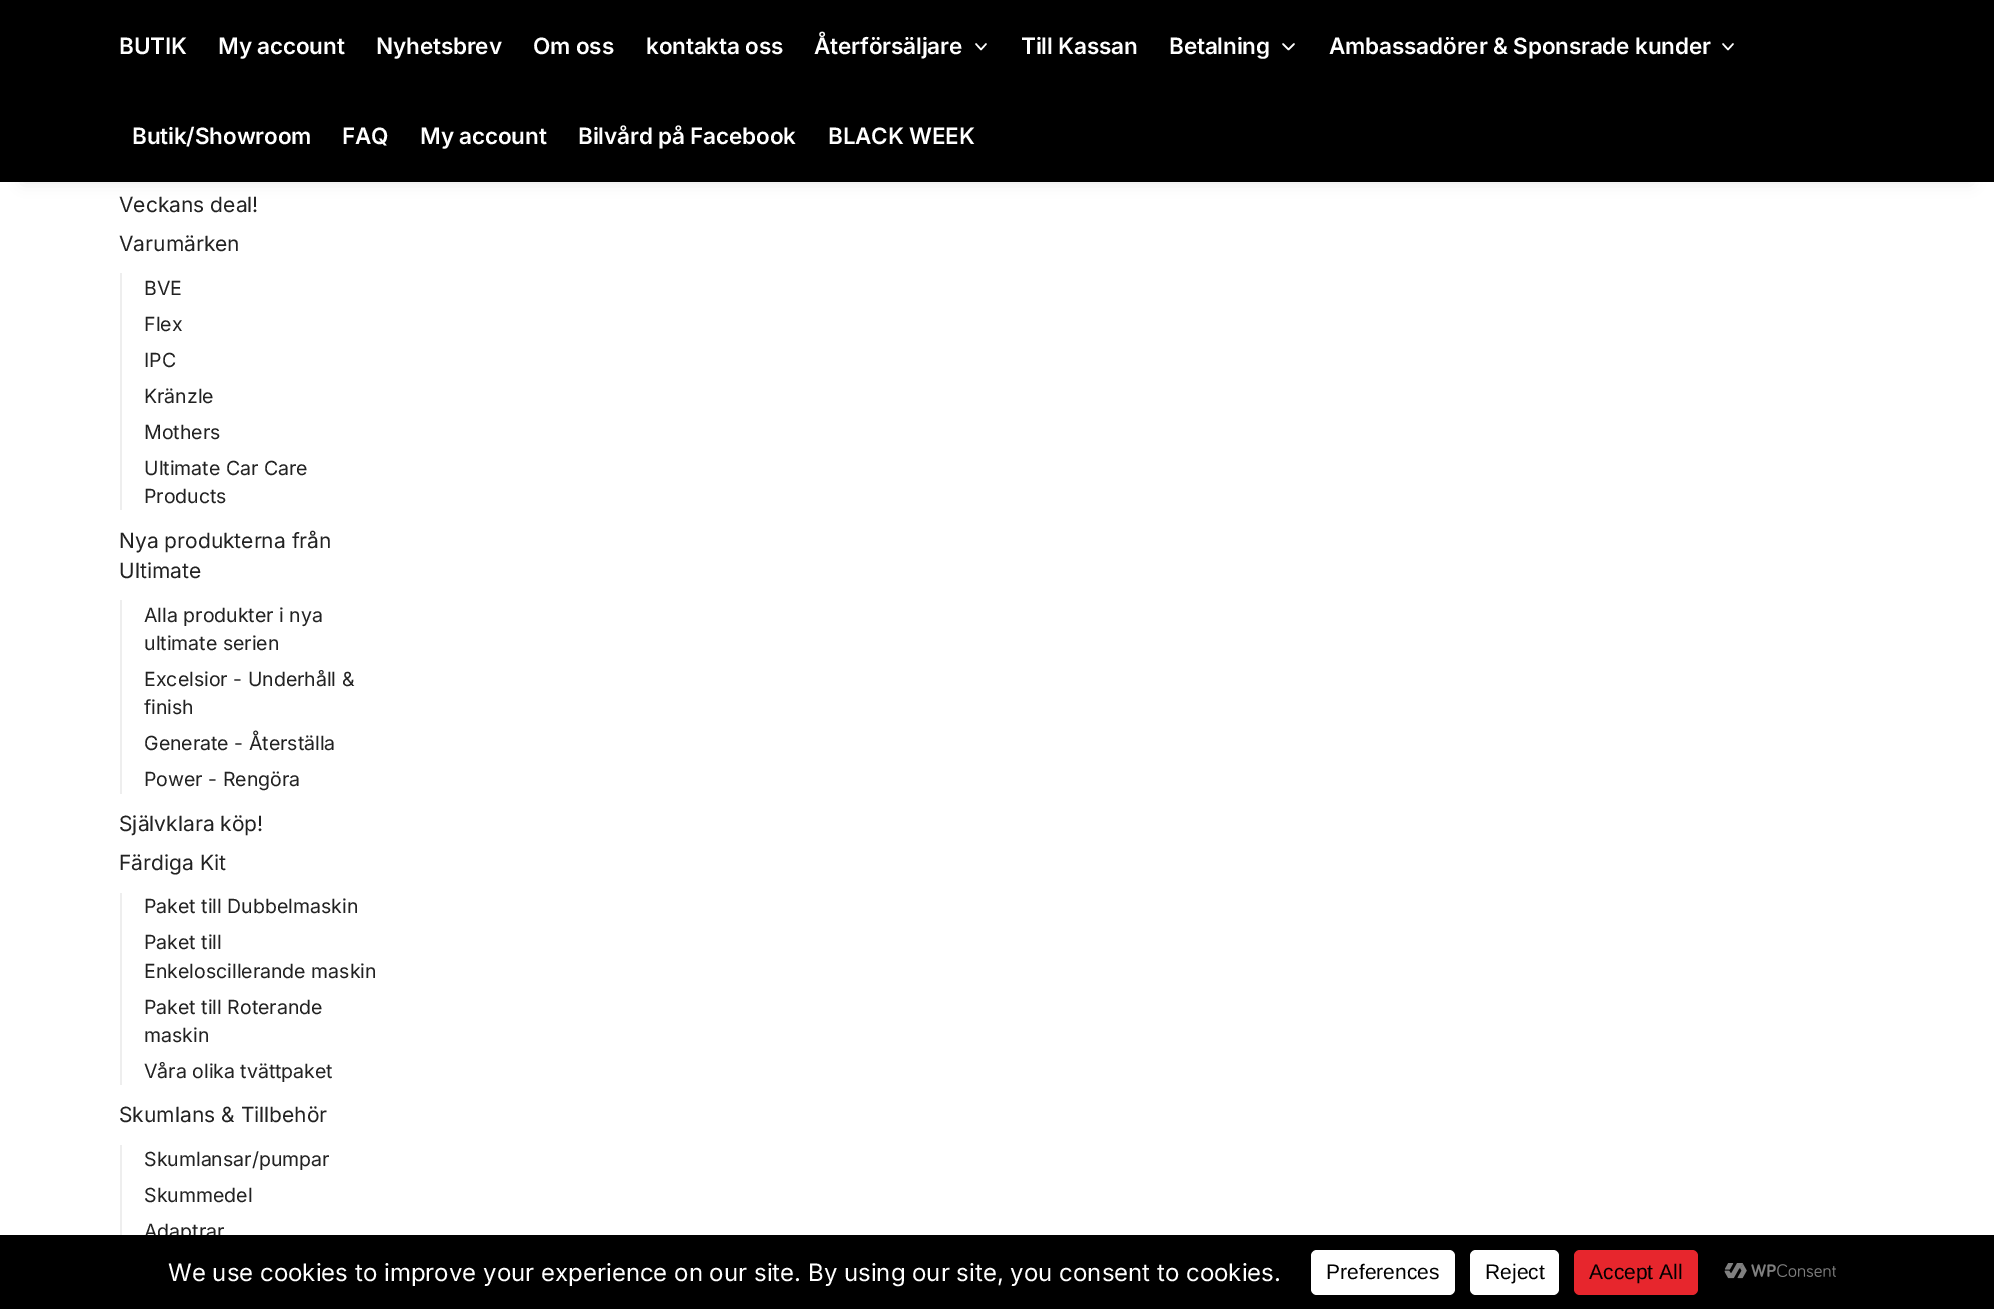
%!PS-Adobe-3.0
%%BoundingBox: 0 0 2015 1309
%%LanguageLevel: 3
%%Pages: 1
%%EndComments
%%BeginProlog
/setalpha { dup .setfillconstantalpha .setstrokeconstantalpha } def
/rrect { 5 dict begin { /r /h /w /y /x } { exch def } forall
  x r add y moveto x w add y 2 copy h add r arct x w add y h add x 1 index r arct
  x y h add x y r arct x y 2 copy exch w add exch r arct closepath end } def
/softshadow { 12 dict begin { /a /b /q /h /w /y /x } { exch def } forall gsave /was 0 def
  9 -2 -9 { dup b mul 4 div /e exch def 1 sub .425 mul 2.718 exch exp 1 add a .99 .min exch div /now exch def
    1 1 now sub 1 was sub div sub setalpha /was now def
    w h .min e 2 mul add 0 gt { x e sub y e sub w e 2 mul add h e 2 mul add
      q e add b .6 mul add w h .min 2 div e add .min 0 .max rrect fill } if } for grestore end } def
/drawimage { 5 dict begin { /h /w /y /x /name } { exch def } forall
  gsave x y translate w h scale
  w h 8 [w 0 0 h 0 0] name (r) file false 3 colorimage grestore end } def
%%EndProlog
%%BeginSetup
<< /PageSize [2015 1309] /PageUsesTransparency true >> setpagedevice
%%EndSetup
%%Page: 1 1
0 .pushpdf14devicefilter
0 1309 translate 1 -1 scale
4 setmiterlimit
1 setgray
0 0 2015 1309 rectfill
0 setgray
23 45 1948 137 0 7.5 0.1 softshadow
0 0 1994 182 rectfill
1 setgray
1.5 setlinewidth
1 setlinecap
1 setlinejoin
newpath 986 44 moveto 981 49.5 lineto 976 44 lineto stroke
newpath 1294 44 moveto 1288.5 49.5 lineto 1283 44 lineto stroke
newpath 1733 44 moveto 1728 49.5 lineto 1723 44 lineto stroke
0.933 setgray
120 273 2 237 rectfill
120 600 2 194 rectfill
120 893 2 192 rectfill
120 1145 2 90 rectfill
/Inter-SemiBold [22.5 0 0 -22.5 0 0] selectfont
1 setgray
119 54 moveto -0.15 0 (BUTIK) ashow
218 54 moveto -0.15 0 (My account) ashow
376 54 moveto -0.15 0 (Nyhetsbrev) ashow
533 54 moveto -0.15 0 (Om oss) ashow
646 54 moveto -0.15 0 (kontakta oss) ashow
814 54 moveto -0.15 0 (Återförsäljare) ashow
1021 54 moveto -0.15 0 (Till Kassan) ashow
1169 54 moveto -0.15 0 (Betalning) ashow
1329 54 moveto -0.15 0 (Ambassadörer & Sponsrade kunder) ashow
132 144 moveto -0.15 0 (Butik/Showroom) ashow
342 144 moveto -0.15 0 (FAQ) ashow
420 144 moveto -0.15 0 (My account) ashow
578 144 moveto -0.15 0 (Bilvård på Facebook) ashow
828 144 moveto -0.15 0 (BLACK WEEK) ashow
/Inter-Regular [21 0 0 -21 0 0] selectfont
0.133 setgray
119 212 moveto (Veckans deal!) show
119 251 moveto (Varumärken) show
/Inter-Regular [19.5 0 0 -19.5 0 0] selectfont
144 295 moveto (BVE) show
144 331 moveto (Flex) show
144 367 moveto (IPC) show
144 403 moveto (Kränzle) show
144 439 moveto (Mothers) show
144 475 moveto (Ultimate Car Care) show
144 503 moveto (Products) show
/Inter-Regular [21 0 0 -21 0 0] selectfont
119 548 moveto (Nya produkterna från) show
119 578 moveto (Ultimate) show
/Inter-Regular [19.5 0 0 -19.5 0 0] selectfont
144 622 moveto (Alla produkter i nya) show
144 650 moveto (ultimate serien) show
144 686 moveto (Excelsior - Underhåll &) show
144 714 moveto (finish) show
144 750 moveto (Generate - Återställa) show
144 786 moveto (Power - Rengöra) show
/Inter-Regular [21 0 0 -21 0 0] selectfont
119 831 moveto (Självklara köp!) show
119 870 moveto (Färdiga Kit) show
/Inter-Regular [19.5 0 0 -19.5 0 0] selectfont
144 913 moveto (Paket till Dubbelmaskin) show
144 949 moveto (Paket till) show
144 978 moveto (Enkeloscillerande maskin) show
144 1014 moveto (Paket till Roterande) show
144 1042 moveto (maskin) show
144 1078 moveto (Våra olika tvättpaket) show
/Inter-Regular [21 0 0 -21 0 0] selectfont
119 1122 moveto (Skumlans & Tillbehör) show
/Inter-Regular [19.5 0 0 -19.5 0 0] selectfont
144 1166 moveto (Skumlansar/pumpar) show
144 1202 moveto (Skummedel) show
144 1238 moveto (Adaptrar) show
0 setgray
0 1235 1994 74 rectfill
/Inter-Regular [24 0 0 -24 0 0] selectfont
1 setgray
168 1281 moveto (We use cookies to improve your experience on our site. By using our site, you consent to cookies.) show
1311 1250 144 45 6 rrect fill
/LiberationSans-Regular [21 0 0 -21 0 0] selectfont
0 setgray
1326 1279 moveto (Preferences) show
1 setgray
1470 1250 89 45 6 rrect fill
0 setgray
1485 1279 moveto (Reject) show
0.906 0.149 0.176 setrgbcolor
1574 1250 124 45 6 rrect fill
0 setgray
1589 1279 moveto (Accept All) show
(images/1.raw) 1724 1263 112 16 drawimage
.poppdf14devicefilter showpage
%%EOF
